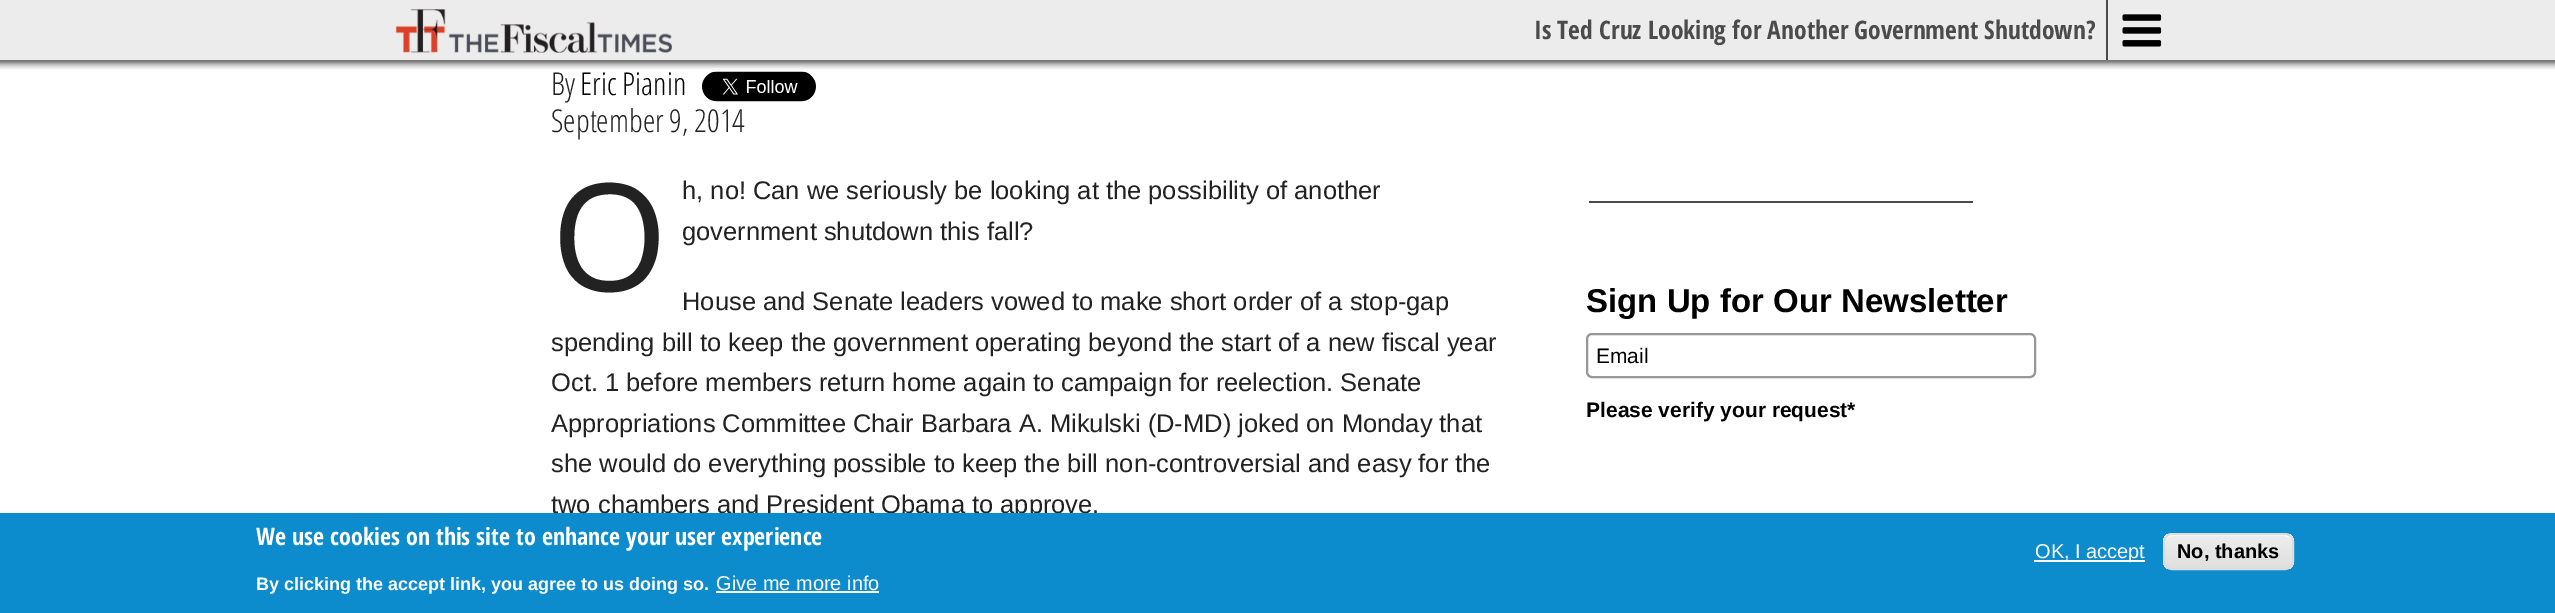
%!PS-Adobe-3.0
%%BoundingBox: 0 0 2555 613
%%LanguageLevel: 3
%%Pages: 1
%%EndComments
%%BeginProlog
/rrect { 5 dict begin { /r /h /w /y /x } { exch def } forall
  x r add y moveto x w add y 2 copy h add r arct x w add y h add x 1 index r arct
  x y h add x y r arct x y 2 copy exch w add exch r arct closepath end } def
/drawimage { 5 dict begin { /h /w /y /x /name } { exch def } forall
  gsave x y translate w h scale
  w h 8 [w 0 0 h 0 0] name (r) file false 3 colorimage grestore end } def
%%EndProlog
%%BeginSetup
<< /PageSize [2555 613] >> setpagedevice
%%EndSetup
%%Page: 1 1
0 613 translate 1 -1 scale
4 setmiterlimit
1 setgray
0 0 2555 613 rectfill
0.925 setgray
0 0 2555 60 rectfill
(images/1.raw) 395 9 277 44 drawimage
0.294 setgray
2106 0 2 60 rectfill
(images/2.raw) 2122 14 40 33 drawimage
(images/3.raw) 0 60 2555 10 drawimage
(images/4.raw) 702 71 114 31 drawimage
1589 201 384 2 rectfill
0.592 setgray
2 setlinewidth
1587 334 448 43 5 rrect stroke
/OpenSansCondensed-Bold [25.5 0 0 -25.5 0 0] selectfont
0.294 setgray
1534 39 moveto (Is Ted Cruz Looking for Another Government Shutdown?) show
/OpenSansCondensed-Light [31.5 0 0 -31.5 0 0] selectfont
0.133 setgray
551 95 moveto (By) show
0 setgray
580 95 moveto (Eric Pianin) show
0.133 setgray
551 132 moveto (September 9, 2014) show
/NotoSans-Regular [150 0 0 -150 0 0] selectfont
551 291 moveto (O) show
/LiberationSans-Regular [25.5 0 0 -25.5 0 0] selectfont
682 199 moveto (h, no! Can we seriously be looking at the possibility of another) show
682 240 moveto (government shutdown this fall?) show
682 310 moveto (House and Senate leaders vowed to make short order of a stop-gap) show
551 351 moveto (spending bill to keep the government operating beyond the start of a new fiscal year) show
551 391 moveto (Oct. 1 before members return home again to campaign for reelection. Senate) show
551 432 moveto (Appropriations Committee Chair Barbara A. Mikulski \(D-MD\) joked on Monday that) show
551 472 moveto (she would do everything possible to keep the bill non-controversial and easy for the) show
551 513 moveto (two chambers and President Obama to approve.) show
/LiberationSans-Bold [33 0 0 -33 0 0] selectfont
0 setgray
1586 312 moveto (Sign Up for Our Newsletter) show
/LiberationSans-Regular [21 0 0 -21 0 0] selectfont
1596 363 moveto (Email) show
/LiberationSans-Bold [21 0 0 -21 0 0] selectfont
1586 417 moveto (Please verify your request*) show
0.047 0.549 0.8 setrgbcolor
0 513 2555 100 rectfill
/OpenSansCondensed-Bold [24 0 0 -24 0 0] selectfont
1 setgray
256 545 moveto (We use cookies on this site to enhance your user experience) show
/LiberationSans-Bold [18 0 0 -18 0 0] selectfont
256 590 moveto (By clicking the accept link, you agree to us doing so.) show
/LiberationSans-Regular [20 0 0 -20 0 0] selectfont
716 590 moveto (Give me more info) show
716 591 163 2 rectfill
2034 560 111 2 rectfill
2035 558 moveto (OK, I accept) show
gsave
2163 533 131 37 9 rrect clip newpath
gsave newpath 2163 534 moveto 2294 534 lineto 2294 569 lineto 2163 569 lineto closepath clip newpath
<< /ShadingType 2 /ColorSpace /DeviceRGB /Coords [2228 534 2228 569] /Extend [true true] /Function << /FunctionType 3 /Domain [0 1] /Functions [<< /FunctionType 2 /Domain [0 1] /C0 [0.929 0.929 0.929] /C1 [0.929 0.929 0.929] /N 1 >> << /FunctionType 2 /Domain [0 1] /C0 [0.929 0.929 0.929] /C1 [0.875 0.875 0.875] /N 1 >>] /Bounds [0.05] /Encode [0 1 0 1] >> >> shfill grestore
grestore
newpath 2172 536 moveto 2284 536 lineto 2289 536 2292 539 2292 543 curveto 2292 542 lineto 2292 538 2288 534 2284 534 curveto 2173 534 lineto 2170 534 2167 536 2166 539 curveto 2167 537 2170 536 2172 536 curveto closepath fill
0.863 setgray
2164 534 129 35 8 rrect stroke
/LiberationSans-Bold [20 0 0 -20 0 0] selectfont
0 setgray
2177 558 moveto (No, thanks) show
showpage
%%EOF
